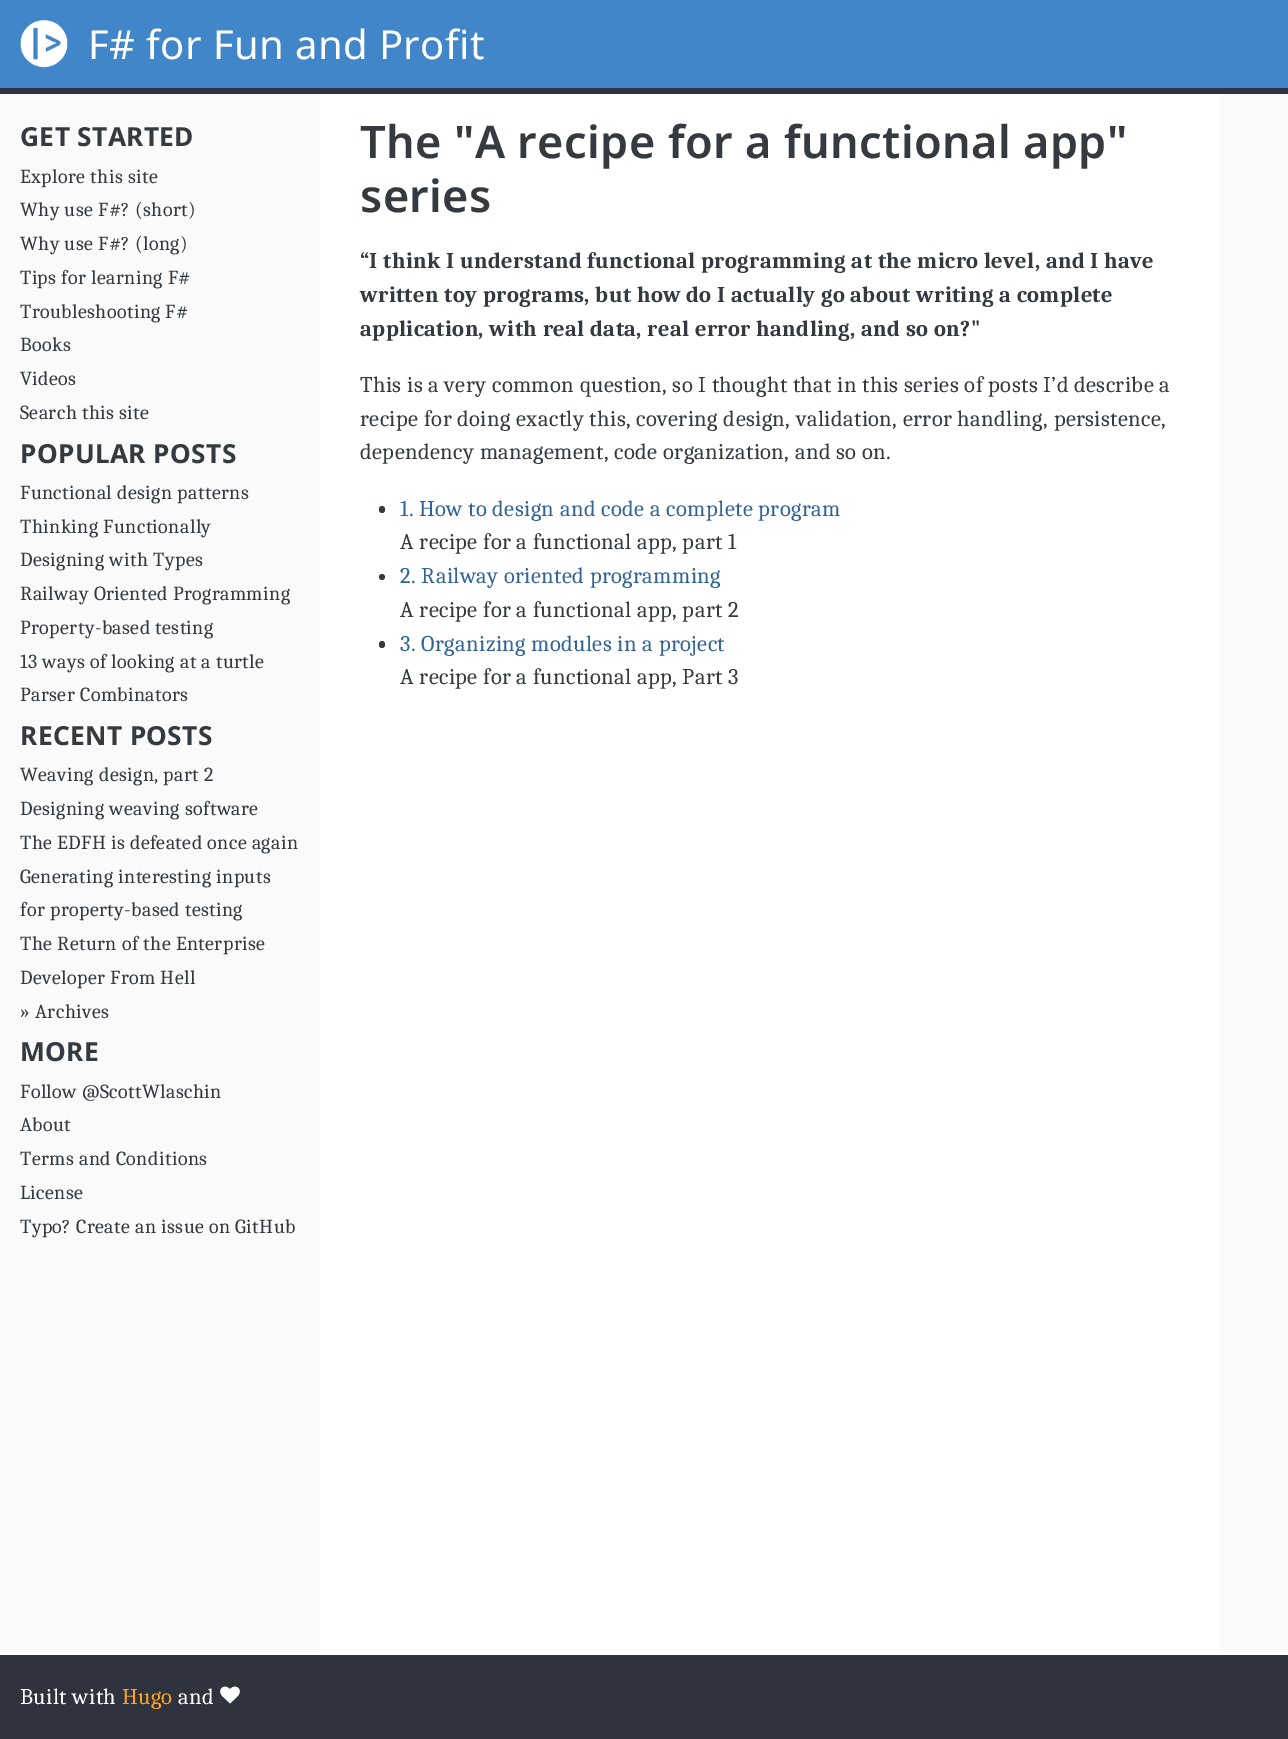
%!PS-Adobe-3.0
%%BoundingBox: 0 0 1288 1739
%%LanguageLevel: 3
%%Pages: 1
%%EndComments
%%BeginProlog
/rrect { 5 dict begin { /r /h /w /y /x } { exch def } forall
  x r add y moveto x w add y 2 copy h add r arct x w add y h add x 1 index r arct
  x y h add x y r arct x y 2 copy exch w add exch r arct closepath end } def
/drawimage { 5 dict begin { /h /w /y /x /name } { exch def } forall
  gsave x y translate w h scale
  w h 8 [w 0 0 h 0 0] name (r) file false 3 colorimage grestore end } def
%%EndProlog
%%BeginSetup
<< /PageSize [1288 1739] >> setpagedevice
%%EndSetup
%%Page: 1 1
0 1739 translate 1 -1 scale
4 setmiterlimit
0.98 setgray
0 0 1288 1739 rectfill
0.255 0.525 0.788 setrgbcolor
0 0 1288 88 rectfill
0.184 0.2 0.243 setrgbcolor
0 88 1288 6 rectfill
(images/1.raw) 20 20 48 48 drawimage
1 setgray
320 94 900 1561 rectfill
0.204 0.227 0.251 setrgbcolor
379 506 6 7 3 rrect fill
newpath 382 577 3 0 360 arc closepath fill
379 641 6 7 3 rrect fill
0.184 0.2 0.243 setrgbcolor
0 1655 1288 84 rectfill
(images/2.raw) 220 1686 20 18 drawimage
/NotoSans-Regular [40 0 0 -40 0 0] selectfont
1 setgray
88 59 moveto 0.4 0 (F# for Fun and Profit) ashow
/NotoSans-Bold [26.25 0 0 -26.25 0 0] selectfont
0.204 0.227 0.251 setrgbcolor
20 146 moveto 0.4 0 (GET STARTED) ashow
/Caladea-Regular [20 0 0 -20 0 0] selectfont
20 183 moveto 0.4 0 (Explore this site) ashow
20 216 moveto 0.4 0 (Why use F#? \(short\)) ashow
20 250 moveto 0.4 0 (Why use F#? \(long\)) ashow
20 284 moveto 0.4 0 (Tips for learning F#) ashow
20 318 moveto 0.4 0 (Troubleshooting F#) ashow
20 351 moveto 0.4 0 (Books) ashow
20 385 moveto 0.4 0 (Videos) ashow
20 419 moveto 0.4 0 (Search this site) ashow
/NotoSans-Bold [26.25 0 0 -26.25 0 0] selectfont
20 463 moveto 0.4 0 (POPULAR POSTS) ashow
/Caladea-Regular [20 0 0 -20 0 0] selectfont
20 499 moveto 0.4 0 (Functional design patterns) ashow
20 533 moveto 0.4 0 (Thinking Functionally) ashow
20 566 moveto 0.4 0 (Designing with Types) ashow
20 600 moveto 0.4 0 (Railway Oriented Programming) ashow
20 634 moveto 0.4 0 (Property-based testing) ashow
20 668 moveto 0.4 0 (13 ways of looking at a turtle) ashow
20 701 moveto 0.4 0 (Parser Combinators) ashow
/NotoSans-Bold [26.25 0 0 -26.25 0 0] selectfont
20 745 moveto 0.4 0 (RECENT POSTS) ashow
/Caladea-Regular [20 0 0 -20 0 0] selectfont
20 781 moveto 0.4 0 (Weaving design, part 2) ashow
20 815 moveto 0.4 0 (Designing weaving software) ashow
20 849 moveto 0.4 0 (The EDFH is defeated once again) ashow
20 883 moveto 0.4 0 (Generating interesting inputs) ashow
20 916 moveto 0.4 0 (for property-based testing) ashow
20 950 moveto 0.4 0 (The Return of the Enterprise) ashow
20 984 moveto 0.4 0 (Developer From Hell) ashow
20 1018 moveto 0.4 0 (» Archives) ashow
/NotoSans-Bold [26.25 0 0 -26.25 0 0] selectfont
20 1061 moveto 0.4 0 (MORE) ashow
/Caladea-Regular [20 0 0 -20 0 0] selectfont
20 1098 moveto 0.4 0 (Follow @ScottWlaschin) ashow
20 1131 moveto 0.4 0 (About) ashow
20 1165 moveto 0.4 0 (Terms and Conditions) ashow
20 1199 moveto 0.4 0 (License) ashow
20 1233 moveto 0.4 0 (Typo? Create an issue on GitHub) ashow
/NotoSans-SemiBold [45 0 0 -45 0 0] selectfont
360 158 moveto 0.4 0 (The "A recipe for a functional app") ashow
360 212 moveto 0.4 0 (series) ashow
/Caladea-Bold [22.5 0 0 -22.5 0 0] selectfont
360 268 moveto 0.4 0 (“I think I understand functional programming at the micro level, and I have) ashow
360 302 moveto 0.4 0 (written toy programs, but how do I actually go about writing a complete) ashow
360 336 moveto 0.4 0 (application, with real data, real error handling, and so on?") ashow
/Caladea-Regular [22.5 0 0 -22.5 0 0] selectfont
360 392 moveto 0.4 0 (This is a very common question, so I thought that in this series of posts I’d describe a) ashow
360 426 moveto 0.4 0 (recipe for doing exactly this, covering design, validation, error handling, persistence,) ashow
360 459 moveto 0.4 0 (dependency management, code organization, and so on.) ashow
0.196 0.392 0.584 setrgbcolor
400 516 moveto 0.4 0 (1. How to design and code a complete program) ashow
0.204 0.227 0.251 setrgbcolor
400 549 moveto 0.4 0 (A recipe for a functional app, part 1) ashow
0.196 0.392 0.584 setrgbcolor
400 583 moveto 0.4 0 (2. Railway oriented programming) ashow
0.204 0.227 0.251 setrgbcolor
400 617 moveto 0.4 0 (A recipe for a functional app, part 2) ashow
0.196 0.392 0.584 setrgbcolor
400 651 moveto 0.4 0 (3. Organizing modules in a project) ashow
0.204 0.227 0.251 setrgbcolor
400 684 moveto 0.4 0 (A recipe for a functional app, Part 3) ashow
1 setgray
20 1704 moveto 0.4 0 (Built with) ashow
1 0.639 0.118 setrgbcolor
122 1704 moveto 0.4 0 (Hugo) ashow
1 setgray
178 1704 moveto 0.4 0 (and) ashow
showpage
%%EOF
